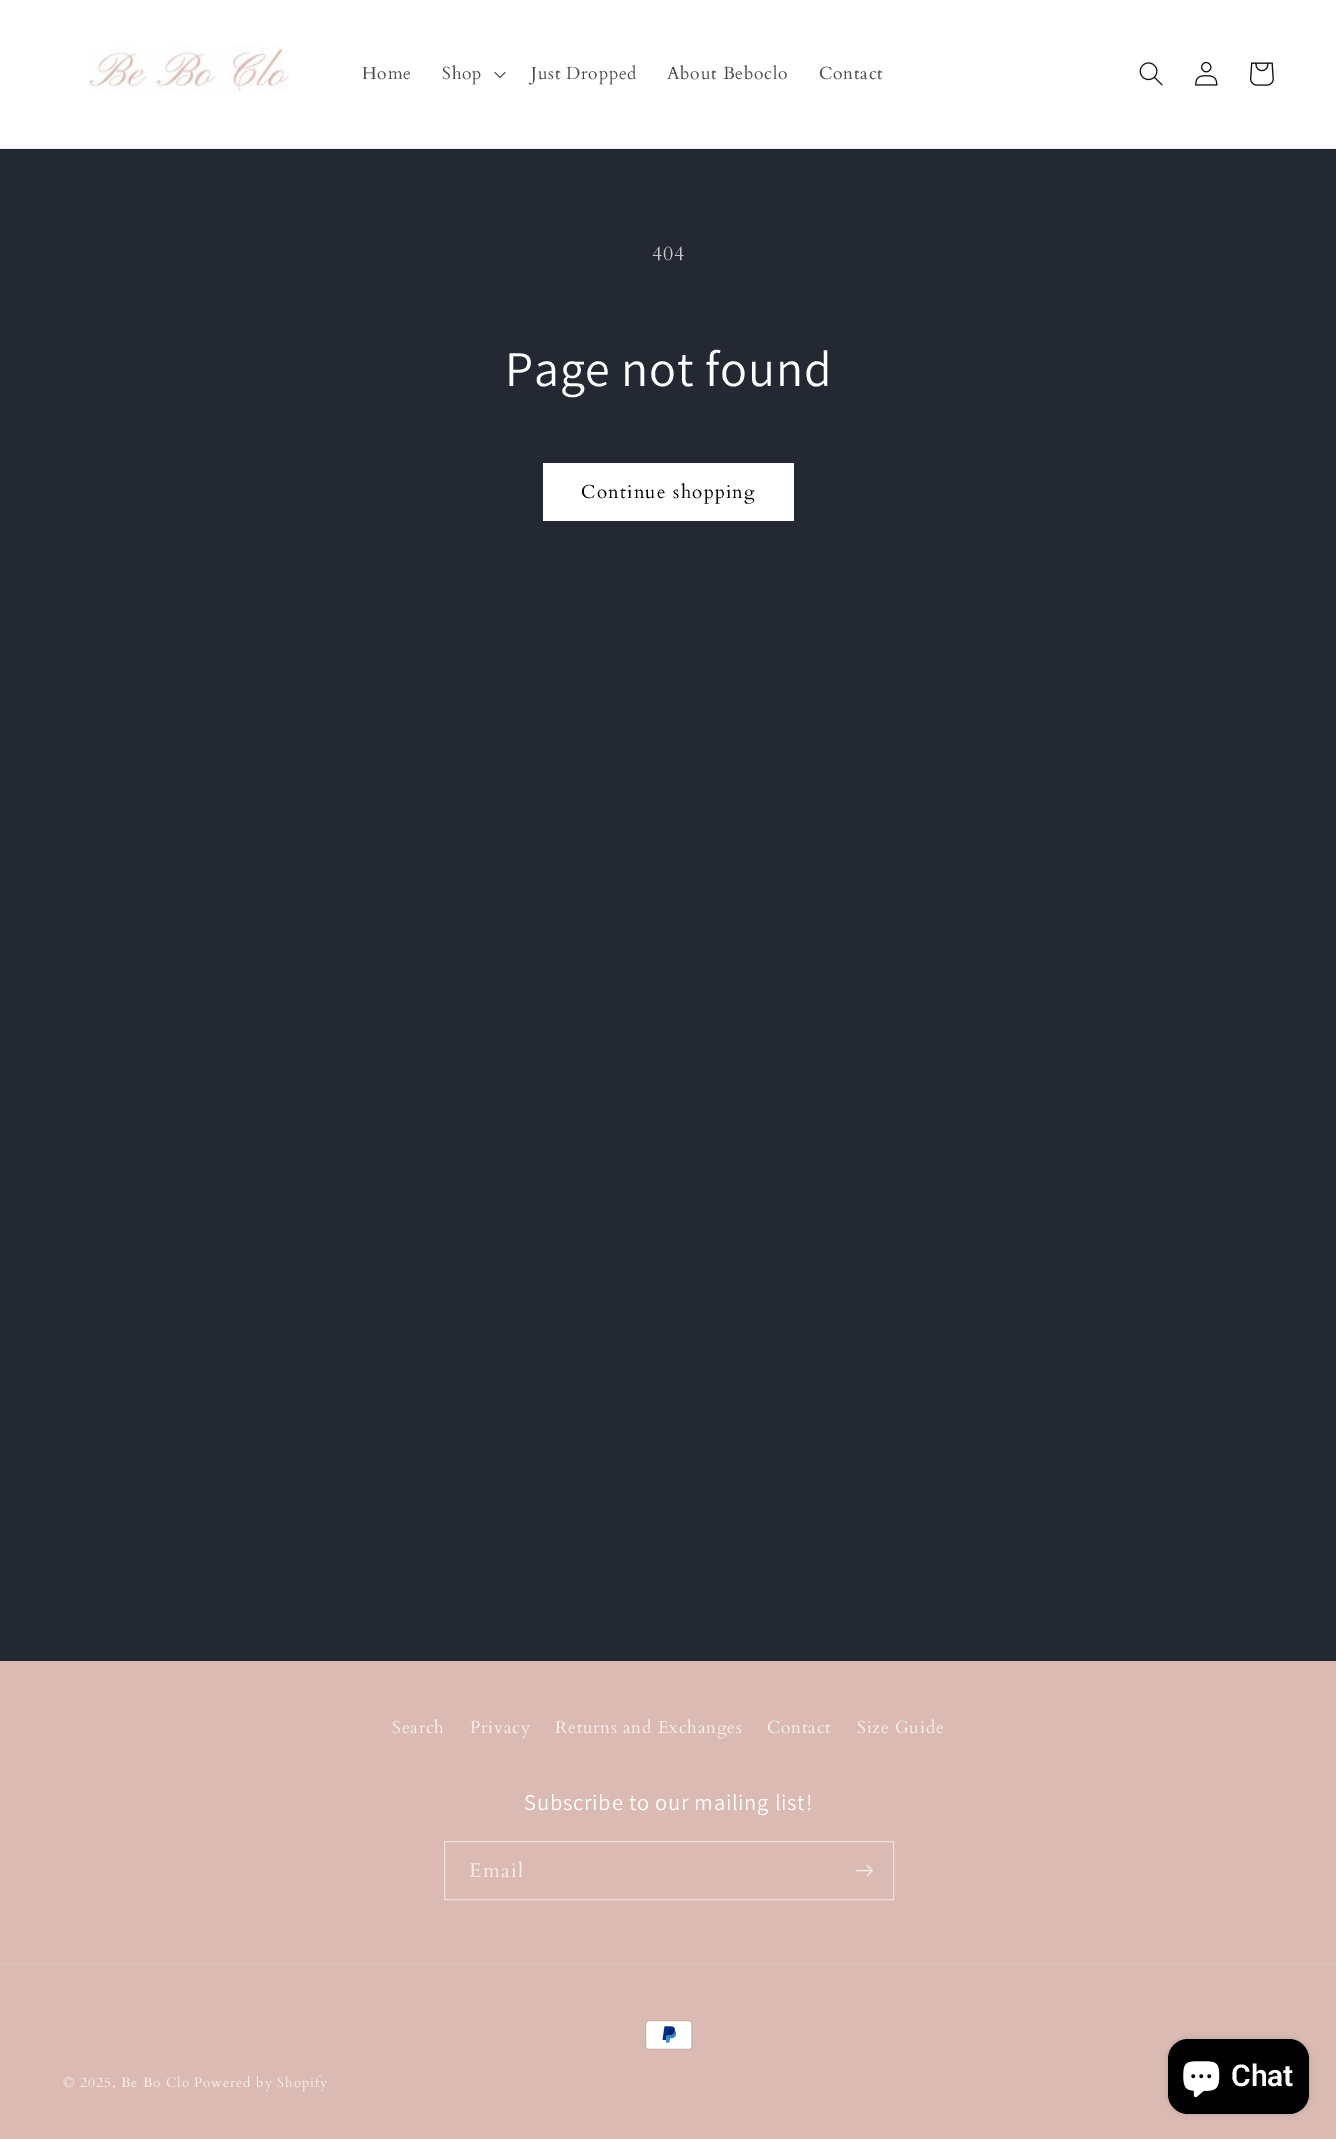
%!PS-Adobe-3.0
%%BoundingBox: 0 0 1336 2139
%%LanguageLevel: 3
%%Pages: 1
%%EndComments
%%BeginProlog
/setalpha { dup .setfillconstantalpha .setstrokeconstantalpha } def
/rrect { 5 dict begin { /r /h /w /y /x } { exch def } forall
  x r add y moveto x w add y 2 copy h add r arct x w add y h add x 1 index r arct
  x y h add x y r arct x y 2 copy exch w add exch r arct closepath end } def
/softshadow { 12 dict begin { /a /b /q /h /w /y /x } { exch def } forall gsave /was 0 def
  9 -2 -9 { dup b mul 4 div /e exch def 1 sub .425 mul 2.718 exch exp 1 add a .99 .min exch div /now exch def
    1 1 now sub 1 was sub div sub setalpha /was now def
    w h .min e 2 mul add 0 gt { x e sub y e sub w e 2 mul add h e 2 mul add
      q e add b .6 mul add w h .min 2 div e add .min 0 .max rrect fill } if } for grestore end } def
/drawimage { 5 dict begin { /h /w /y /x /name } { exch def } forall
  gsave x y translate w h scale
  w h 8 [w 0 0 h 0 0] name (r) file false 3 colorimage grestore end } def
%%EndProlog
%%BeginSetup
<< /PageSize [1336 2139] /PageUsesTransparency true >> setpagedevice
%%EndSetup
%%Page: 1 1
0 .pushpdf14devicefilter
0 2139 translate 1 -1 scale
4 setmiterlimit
0.141 0.157 0.2 setrgbcolor
0 0 1336 2139 rectfill
1 setgray
0 0 1336 148 rectfill
0.925 setgray
0 148 1336 1 rectfill
(images/1.raw) 87 45 203 47 drawimage
(images/2.raw) 494 72 12 6 drawimage
(images/3.raw) 1139 62 24 24 drawimage
(images/4.raw) 1195 61 23 25 drawimage
(images/5.raw) 1250 62 24 24 drawimage
1 setgray
543 463 251 58 rectfill
0.859 0.729 0.702 setrgbcolor
0 1661 1336 478 rectfill
0.937 0.878 0.867 setrgbcolor
444.5 1841.5 449 58 rectstroke
(images/6.raw) 855 1864 18 13 drawimage
0.871 0.753 0.725 setrgbcolor
0 1963 1336 1 rectfill
(images/7.raw) 645 2020 48 30 drawimage
0 setgray
1168 2039 141 75 20 3 0.15 softshadow
1168 2039 141 75 20 rrect fill
(images/8.raw) 1183 2061 37 37 drawimage
/Cardo-Regular [17.5 0 0 -17.5 0 0] selectfont
0.302 setgray
362 79 moveto 0.75 0 (Home) ashow
442 79 moveto 0.75 0 (Shop) ashow
531 79 moveto 0.75 0 (Just Dropped) ashow
667 79 moveto 0.75 0 (About Beboclo) ashow
819 79 moveto 0.75 0 (Contact) ashow
/Cardo-Regular [20 0 0 -20 0 0] selectfont
0.784 0.788 0.8 setrgbcolor
652 260 moveto 0.75 0 (404) ashow
/Assistant-Regular [50 0 0 -50 0 0] selectfont
1 setgray
505 386 moveto 0.75 0 (Page not found) ashow
/Cardo-Regular [18.75 0 0 -18.75 0 0] selectfont
0 setgray
581 498 moveto 1.25 0 (Continue shopping) ashow
/Cardo-Regular [17.5 0 0 -17.5 0 0] selectfont
0.965 0.933 0.925 setrgbcolor
392 1733 moveto 0.75 0 (Search) ashow
470 1733 moveto 0.75 0 (Privacy) ashow
555 1733 moveto 0.75 0 (Returns and Exchanges) ashow
767 1733 moveto 0.75 0 (Contact) ashow
857 1733 moveto 0.75 0 (Size Guide) ashow
/Assistant-Regular [22.5 0 0 -22.5 0 0] selectfont
1 setgray
524 1810 moveto 0.75 0 (Subscribe to our mailing list!) ashow
/Cardo-Regular [20 0 0 -20 0 0] selectfont
0.965 0.933 0.925 setrgbcolor
469 1877 moveto 1.25 0 (Email) ashow
/Cardo-Regular [13.75 0 0 -13.75 0 0] selectfont
63 2087 moveto 0.9 0 (© 2025, Be Bo Clo) ashow
194 2087 moveto 0.9 0 (Powered by Shopify) ashow
/Roboto-SemiBold [30 0 0 -30 0 0] selectfont
1 setgray
1231 2086 moveto (Chat) show
.poppdf14devicefilter showpage
%%EOF
